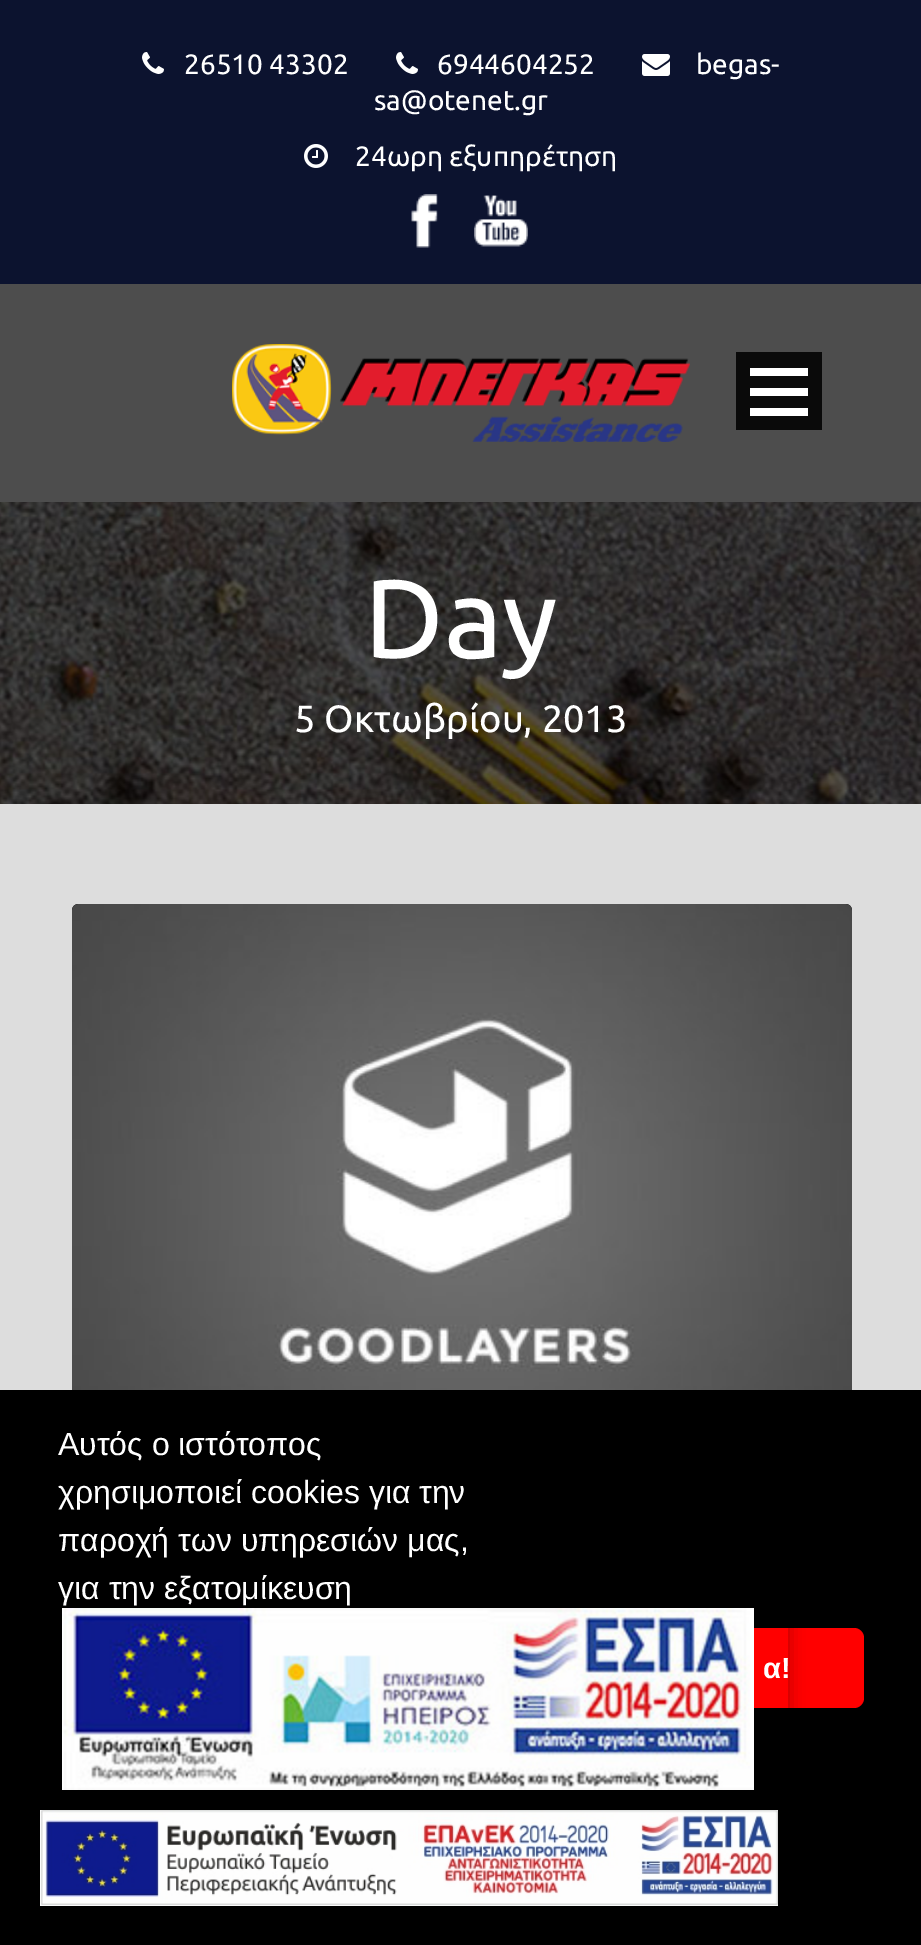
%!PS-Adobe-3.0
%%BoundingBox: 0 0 921 1945
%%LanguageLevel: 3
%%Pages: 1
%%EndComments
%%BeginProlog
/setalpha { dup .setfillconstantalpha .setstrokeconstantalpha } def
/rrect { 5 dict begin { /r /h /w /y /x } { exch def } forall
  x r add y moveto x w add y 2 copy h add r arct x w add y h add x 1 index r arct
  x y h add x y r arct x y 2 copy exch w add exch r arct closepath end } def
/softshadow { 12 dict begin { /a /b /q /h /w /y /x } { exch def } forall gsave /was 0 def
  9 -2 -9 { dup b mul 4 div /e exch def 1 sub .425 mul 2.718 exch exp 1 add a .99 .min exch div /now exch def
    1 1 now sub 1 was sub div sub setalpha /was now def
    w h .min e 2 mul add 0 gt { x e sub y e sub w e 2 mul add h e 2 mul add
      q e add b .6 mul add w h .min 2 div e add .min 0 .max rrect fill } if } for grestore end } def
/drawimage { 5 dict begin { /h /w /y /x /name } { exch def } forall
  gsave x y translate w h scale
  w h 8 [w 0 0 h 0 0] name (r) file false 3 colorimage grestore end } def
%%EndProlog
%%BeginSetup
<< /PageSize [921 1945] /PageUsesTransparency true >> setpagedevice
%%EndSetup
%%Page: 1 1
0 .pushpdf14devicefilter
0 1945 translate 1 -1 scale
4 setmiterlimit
0.867 setgray
0 0 921 1945 rectfill
0.047 0.075 0.184 setrgbcolor
0 0 921 284 rectfill
(images/1.raw) 142 52 22 22 drawimage
(images/2.raw) 642 54 28 22 drawimage
(images/1.raw) 396 52 22 22 drawimage
(images/3.raw) 304 144 24 24 drawimage
(images/4.raw) 411 194 27 54 drawimage
(images/5.raw) 474 195 54 52 drawimage
0.302 setgray
0 284 921 218 rectfill
(images/6.raw) 232 344 458 98 drawimage
0.039 setgray
736 352 86 78 rectfill
1 setgray
750 408 58 8 rectfill
750 388 58 8 rectfill
750 368 58 8 rectfill
(images/7.raw) 0 502 921 302 drawimage
(images/8.raw) 72 904 780 486 drawimage
0 setgray
0 1390 921 555 rectfill
1 0 0 setrgbcolor
530 1628 334 80 10 rrect fill
gsave
newpath 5 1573 moveto 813 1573 lineto 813 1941 lineto 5 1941 lineto closepath 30 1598 moveto 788 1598 lineto 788 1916 lineto 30 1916 lineto closepath eoclip newpath
0 setgray
30 1598 758 318 0 8 0.3 softshadow
grestore
(images/9.raw) 62 1608 692 182 drawimage
(images/10.raw) 40 1810 738 96 drawimage
/Ubuntu-Regular [28 0 0 -28 0 0] selectfont
1 setgray
184 74 moveto (26510 43302) show
696 74 moveto (begas-) show
374 110 moveto (sa@otenet.gr) show
437 74 moveto (6944604252) show
355 166 moveto (24ωρη εξυπηρέτηση) show
/Ubuntu-Regular [112 0 0 -112 0 0] selectfont
364 658 moveto (Day) show
/Ubuntu-Regular [38 0 0 -38 0 0] selectfont
294 732 moveto (5 Οκτωβρίου, 2013) show
/LiberationSans-Regular [32 0 0 -32 0 0] selectfont
58 1455 moveto (Αυτός ο ιστότοπος) show
58 1503 moveto (χρησιμοποιεί cookies για την) show
58 1551 moveto (παροχή των υπηρεσιών μας,) show
58 1599 moveto (για την εξατομίκευση) show
/LiberationSans-Bold [29 0 0 -29 0 0] selectfont
763 1678 moveto (α!) show
.poppdf14devicefilter showpage
%%EOF
